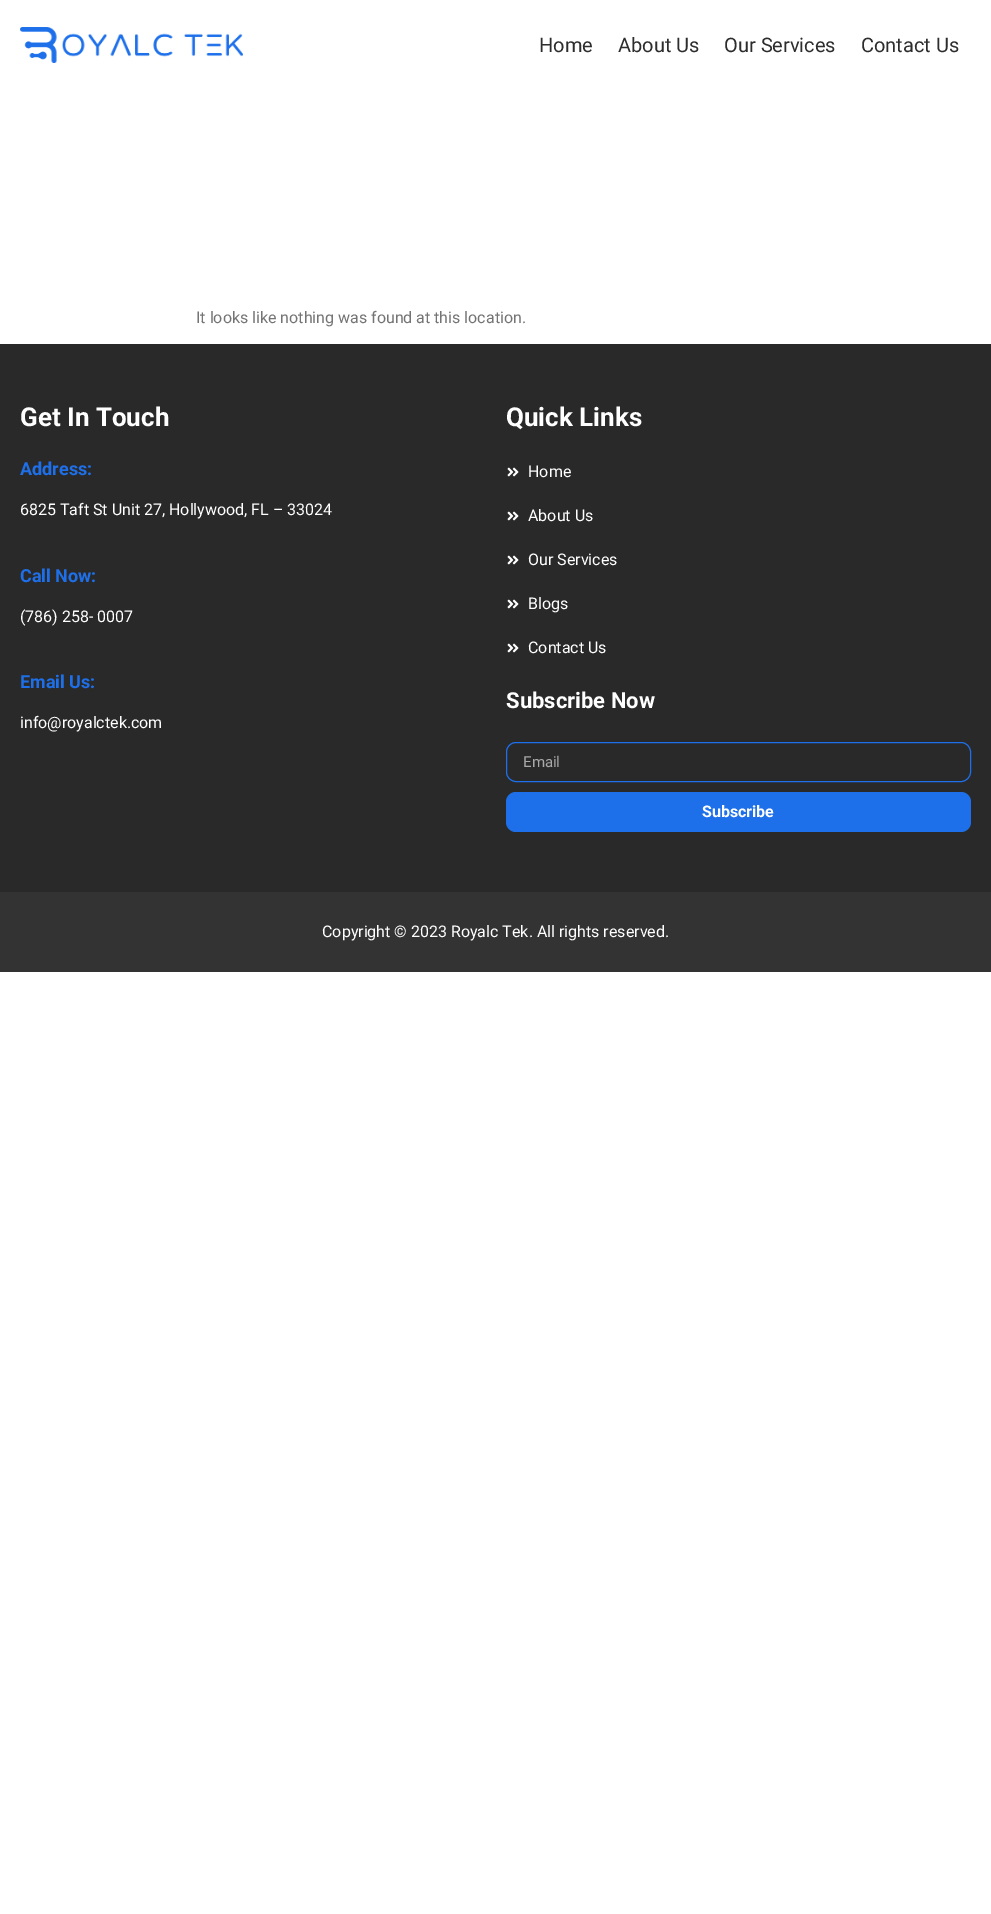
%!PS-Adobe-3.0
%%BoundingBox: 0 0 991 1914
%%LanguageLevel: 3
%%Pages: 1
%%EndComments
%%BeginProlog
/rrect { 5 dict begin { /r /h /w /y /x } { exch def } forall
  x r add y moveto x w add y 2 copy h add r arct x w add y h add x 1 index r arct
  x y h add x y r arct x y 2 copy exch w add exch r arct closepath end } def
/drawimage { 5 dict begin { /h /w /y /x /name } { exch def } forall
  gsave x y translate w h scale
  w h 8 [w 0 0 h 0 0] name (r) file false 3 colorimage grestore end } def
%%EndProlog
%%BeginSetup
<< /PageSize [991 1914] >> setpagedevice
%%EndSetup
%%Page: 1 1
0 1914 translate 1 -1 scale
4 setmiterlimit
1 setgray
0 0 991 1914 rectfill
(images/1.raw) 20 27 223 36 drawimage
0.161 setgray
0 344 991 548 rectfill
(images/2.raw) 507 467 12 10 drawimage
(images/2.raw) 507 511 12 10 drawimage
(images/2.raw) 507 555 12 10 drawimage
(images/2.raw) 507 599 12 10 drawimage
(images/2.raw) 507 643 12 10 drawimage
0.118 0.439 0.918 setrgbcolor
506.5 742.5 464 39 9.5 rrect stroke
506 792 465 40 10 rrect fill
0.2 setgray
0 892 991 80 rectfill
/Roboto-Regular [20 0 0 -20 0 0] selectfont
0.176 setgray
539 52 moveto (Home) show
618 52 moveto (About Us) show
724 52 moveto (Our Services) show
861 52 moveto (Contact Us) show
/Roboto-Regular [16 0 0 -16 0 0] selectfont
0.455 setgray
196 323 moveto (It looks like nothing was found at this location.) show
/Roboto-Bold [26 0 0 -26 0 0] selectfont
1 setgray
20 426 moveto (Get In Touch) show
/Roboto-Bold [18 0 0 -18 0 0] selectfont
0.118 0.439 0.918 setrgbcolor
20 475 moveto (Address:) show
/Roboto-Regular [16 0 0 -16 0 0] selectfont
1 setgray
20 515 moveto (6825 Taft St Unit 27, Hollywood, FL – 33024) show
/Roboto-Bold [18 0 0 -18 0 0] selectfont
0.118 0.439 0.918 setrgbcolor
20 582 moveto (Call Now:) show
/Roboto-Regular [16 0 0 -16 0 0] selectfont
1 setgray
20 622 moveto (\(786\) 258- 0007) show
/Roboto-Bold [18 0 0 -18 0 0] selectfont
0.118 0.439 0.918 setrgbcolor
20 688 moveto (Email Us:) show
/Roboto-Regular [16 0 0 -16 0 0] selectfont
1 setgray
20 728 moveto (info@royalctek.com) show
/Roboto-Bold [26 0 0 -26 0 0] selectfont
506 426 moveto (Quick Links) show
/Roboto-Regular [16 0 0 -16 0 0] selectfont
528 477 moveto (Home) show
528 521 moveto (About Us) show
528 565 moveto (Our Services) show
528 609 moveto (Blogs) show
528 653 moveto (Contact Us) show
/Roboto-Bold [22 0 0 -22 0 0] selectfont
506 708 moveto (Subscribe Now) show
/Roboto-Regular [15 0 0 -15 0 0] selectfont
0.663 setgray
523 767 moveto (Email) show
/Roboto-Bold [16 0 0 -16 0 0] selectfont
1 setgray
702 817 moveto (Subscribe) show
/Roboto-Regular [16 0 0 -16 0 0] selectfont
322 937 moveto (Copyright © 2023 Royalc Tek. All rights reserved.) show
showpage
%%EOF
